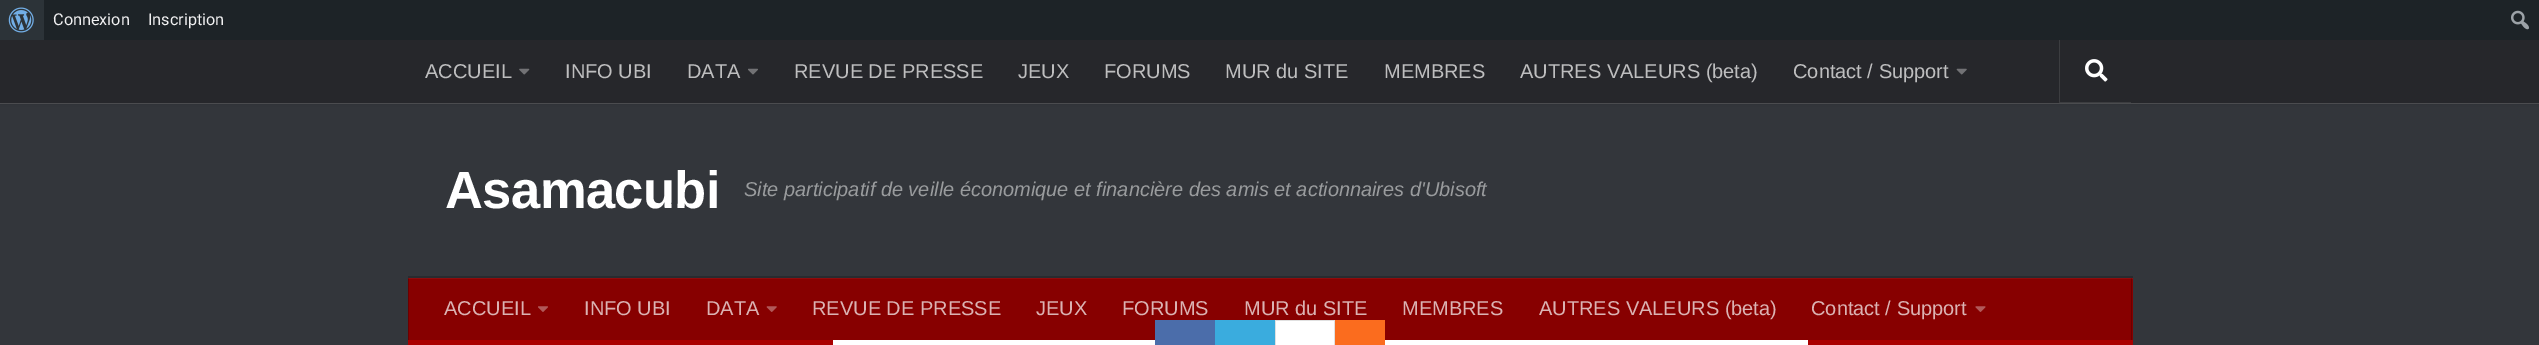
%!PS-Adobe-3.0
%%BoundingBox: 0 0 2539 345
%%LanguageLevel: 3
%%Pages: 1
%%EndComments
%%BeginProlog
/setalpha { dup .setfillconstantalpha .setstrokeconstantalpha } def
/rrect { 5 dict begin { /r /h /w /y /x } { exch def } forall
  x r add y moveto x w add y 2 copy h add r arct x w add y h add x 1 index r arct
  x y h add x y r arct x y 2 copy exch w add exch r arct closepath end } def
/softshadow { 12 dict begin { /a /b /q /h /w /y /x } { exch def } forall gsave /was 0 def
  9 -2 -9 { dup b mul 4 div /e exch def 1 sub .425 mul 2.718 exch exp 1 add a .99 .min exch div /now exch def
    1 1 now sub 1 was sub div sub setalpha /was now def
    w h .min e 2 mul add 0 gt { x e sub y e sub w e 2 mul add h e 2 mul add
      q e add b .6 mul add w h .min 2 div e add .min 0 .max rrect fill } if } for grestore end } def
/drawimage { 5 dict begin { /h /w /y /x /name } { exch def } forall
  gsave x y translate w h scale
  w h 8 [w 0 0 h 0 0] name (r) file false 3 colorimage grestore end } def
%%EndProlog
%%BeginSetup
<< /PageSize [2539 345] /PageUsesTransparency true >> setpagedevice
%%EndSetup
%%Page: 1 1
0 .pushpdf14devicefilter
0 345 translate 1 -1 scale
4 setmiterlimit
0.2 0.212 0.231 setrgbcolor
0 0 2539 345 rectfill
0.322 0.329 0.345 setrgbcolor
0 103 2539 1 rectfill
0 setgray
0 40 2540 63 0 3 0.2 softshadow
0.114 0.137 0.153 setrgbcolor
44 0 2495 40 rectfill
0.173 0.2 0.22 setrgbcolor
0 0 44 40 rectfill
(images/1.raw) 8 7 26 26 drawimage
(images/2.raw) 2511 10 18 20 drawimage
0.149 0.153 0.169 setrgbcolor
0 40 2539 63 rectfill
(images/3.raw) 519 68 11 7 drawimage
(images/4.raw) 748 68 10 7 drawimage
(images/5.raw) 1956 68 11 7 drawimage
0.235 0.239 0.251 setrgbcolor
newpath 2059 40 moveto 2059 103 lineto 2131 103 lineto 2131 102 lineto 2060 102 lineto 2060 40 lineto closepath fill
(images/6.raw) 2085 59 23 23 drawimage
0.161 0.169 0.184 setrgbcolor
newpath 408 276 moveto 408 278 lineto 2132 278 lineto 2132 339 lineto 2133 339 lineto 2133 276 lineto closepath fill
0.529 0 0 setrgbcolor
409 278 1724 62 rectfill
0.424 0 0 setrgbcolor
2131 278 1 62 rectfill
408 278 1 62 rectfill
0.05 setalpha
1 setgray
408 278 1725 1 rectfill
1 setalpha
(images/7.raw) 538 306 10 6 drawimage
(images/8.raw) 766 306 11 6 drawimage
(images/9.raw) 1975 306 11 6 drawimage
833 340 975 5 rectfill
0.667 0 0 setrgbcolor
408 340 425 5 rectfill
1808 340 325 5 rectfill
0.294 0.427 0.667 setrgbcolor
1155 320 60 25 rectfill
0.227 0.675 0.871 setrgbcolor
1215 320 60 25 rectfill
1 setgray
1276 321 58 19 rectfill
0.878 setgray
1275 320 60 1 rectfill
1334 320 1 25 rectfill
1275 320 1 25 rectfill
0.984 0.424 0.118 setrgbcolor
1335 320 50 25 rectfill
/Roboto-Regular [16.25 0 0 -16.25 0 0] selectfont
0.941 0.941 0.945 setrgbcolor
53 25 moveto (Connexion) show
148 25 moveto (Inscription) show
/LiberationSans-Regular [20 0 0 -20 0 0] selectfont
0.745 0.745 0.749 setrgbcolor
425 78 moveto (ACCUEIL) show
565 78 moveto (INFO UBI) show
687 78 moveto (DATA) show
794 78 moveto (REVUE DE PRESSE) show
1018 78 moveto (JEUX) show
1104 78 moveto (FORUMS) show
1225 78 moveto (MUR du SITE) show
1384 78 moveto (MEMBRES) show
1520 78 moveto (AUTRES VALEURS \(beta\)) show
1793 78 moveto (Contact / Support) show
/LiberationSans-Bold [52.5 0 0 -52.5 0 0] selectfont
1 setgray
445 208 moveto -0.6 0 (Asamacubi) ashow
/LiberationSans-Italic [20 0 0 -20 0 0] selectfont
0.6 0.608 0.616 setrgbcolor
744 196 moveto (Site participatif de veille économique et financière des amis et actionnaires d'Ubisoft) show
/LiberationSans-Regular [20 0 0 -20 0 0] selectfont
0.859 0.702 0.702 setrgbcolor
444 315 moveto (ACCUEIL) show
584 315 moveto (INFO UBI) show
706 315 moveto (DATA) show
812 315 moveto (REVUE DE PRESSE) show
1036 315 moveto (JEUX) show
1122 315 moveto (FORUMS) show
1244 315 moveto (MUR du SITE) show
1402 315 moveto (MEMBRES) show
1539 315 moveto (AUTRES VALEURS \(beta\)) show
1811 315 moveto (Contact / Support) show
.poppdf14devicefilter showpage
%%EOF
